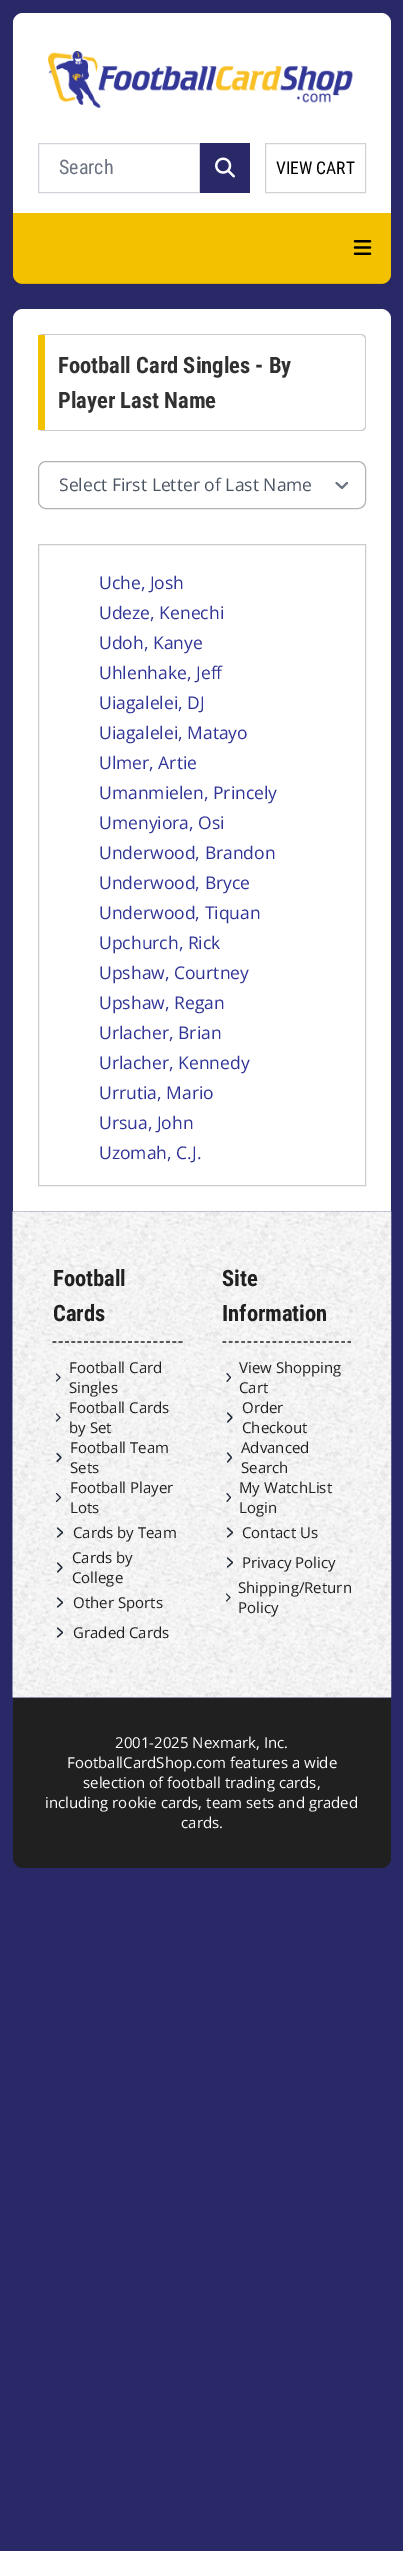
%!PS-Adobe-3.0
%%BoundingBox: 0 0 403 2551
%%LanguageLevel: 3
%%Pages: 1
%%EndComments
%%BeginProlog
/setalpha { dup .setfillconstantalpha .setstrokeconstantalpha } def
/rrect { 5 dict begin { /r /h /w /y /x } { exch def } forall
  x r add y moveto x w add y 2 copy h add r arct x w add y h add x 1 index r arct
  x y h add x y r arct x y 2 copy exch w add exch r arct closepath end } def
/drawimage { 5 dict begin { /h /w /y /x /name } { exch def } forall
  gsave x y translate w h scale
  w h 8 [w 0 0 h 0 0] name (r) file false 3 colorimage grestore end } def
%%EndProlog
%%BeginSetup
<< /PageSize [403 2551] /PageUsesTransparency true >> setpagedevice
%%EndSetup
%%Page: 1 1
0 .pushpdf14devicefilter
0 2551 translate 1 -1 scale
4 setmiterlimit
0.161 0.161 0.404 setrgbcolor
0 0 403 2551 rectfill
1 setgray
newpath 23 13 moveto 381 13 lineto 386.5 13 391 17.5 391 23 curveto 391 213 lineto 13 213 lineto 13 23 lineto 13 17.5 17.5 13 23 13 curveto closepath fill
(images/1.raw) 48 51 305 57 drawimage
0.82 0.835 0.859 setrgbcolor
38.5 143.5 161 49 rectstroke
0.161 0.161 0.404 setrgbcolor
200 143 50 50 rectfill
(images/2.raw) 215 157 20 21 drawimage
0.824 setgray
265.5 143.5 100 49 rectstroke
0.949 0.757 0 setrgbcolor
newpath 13 213 moveto 391 213 lineto 391 274 lineto 391 279.5 386.5 284 381 284 curveto 23 284 lineto 17.5 284 13 279.5 13 274 curveto closepath fill
0.1 setalpha
0 setgray
13 283 378 1 rectfill
1 setalpha
(images/3.raw) 353 240 19 15 drawimage
1 setgray
newpath 23 309 moveto 381 309 lineto 386.5 309 391 313.5 391 319 curveto 391 1211 lineto 13 1211 lineto 13 319 lineto 13 313.5 17.5 309 23 309 curveto closepath fill
0.8 setgray
newpath 42 334 moveto 361 334 lineto 364 334 366 336 366 339 curveto 366 426 lineto 366 429 364 431 361 431 curveto 42 431 lineto 40 431 38 429 38 426 curveto 38 339 lineto 38 336 40 334 42 334 curveto closepath 42 335 moveto 361 335 lineto 363 335 365 337 365 339 curveto 365 426 lineto 365 428 363 430 361 430 curveto 42 430 lineto 40 430 38 428 38 426 curveto 38 339 lineto 38 337 40 335 42 335 curveto closepath eofill
0.949 0.757 0 setrgbcolor
38 335 7 95 rectfill
0.42 0.447 0.502 setrgbcolor
2 setlinewidth
1 setlinecap
1 setlinejoin
newpath 336.5 483 moveto 342 488 lineto 347 483 lineto stroke
0.702 setgray
1 setlinewidth
0 setlinecap
0 setlinejoin
38.5 461.5 327 47 7.5 rrect stroke
0.8 setgray
38.5 544.5 327 641 rectstroke
(images/4.raw) 12 1211 380 487 drawimage
0.125 setgray
1.2 setlinewidth
[3.75 2.56] 0 setdash
newpath 52.5 1342 moveto 182.5 1342 lineto stroke
0.122 0.161 0.216 setrgbcolor
1 setlinewidth
1 setlinecap
1 setlinejoin
[] 0 setdash
newpath 56.5 1374 moveto 60 1377.5 lineto 56.5 1381 lineto 56.5 1414 moveto 60 1417.5 lineto 56.5 1421 lineto stroke
1.1 setlinewidth
newpath 57 1453.5 moveto 61 1457.5 lineto 57 1461.5 lineto stroke
1 setlinewidth
newpath 56.5 1493.5 moveto 60.5 1497.5 lineto 56.5 1501.5 lineto stroke
1.2 setlinewidth
newpath 57.5 1528 moveto 62.5 1532.5 lineto 57.5 1537 lineto 57.5 1563 moveto 62 1567.5 lineto 57.5 1572 lineto stroke
newpath 57.5 1598 moveto 62.5 1602.5 lineto 57.5 1607 lineto 57.5 1628 moveto 62.5 1632.5 lineto 57.5 1637 lineto stroke
0.125 setgray
0 setlinecap
0 setlinejoin
[3.75 2.5] 0 setdash
newpath 222.5 1342 moveto 351 1342 lineto stroke
0.122 0.161 0.216 setrgbcolor
1 setlinewidth
1 setlinecap
1 setlinejoin
[] 0 setdash
newpath 227 1373.5 moveto 230.5 1377.5 lineto 227 1381.5 lineto stroke
1.2 setlinewidth
newpath 227.5 1413 moveto 232 1417.5 lineto 227.5 1422 lineto 227.5 1453 moveto 231.5 1457.5 lineto 227.5 1462 lineto stroke
1 setlinewidth
newpath 227 1493.5 moveto 230.5 1497.5 lineto 227 1501.5 lineto stroke
1.2 setlinewidth
newpath 227.5 1528 moveto 232.5 1532.5 lineto 227.5 1537 lineto 227.5 1558 moveto 232.5 1562.5 lineto 227.5 1567 lineto stroke
0.9 setlinewidth
newpath 226.5 1594 moveto 230 1597.5 lineto 226.5 1601 lineto stroke
0.125 setgray
newpath 13 1698 moveto 391 1698 lineto 391 1858 lineto 391 1863.5 386.5 1868 381 1868 curveto 23 1868 lineto 17.5 1868 13 1863.5 13 1858 curveto closepath fill
/RobotoCondensed-Regular [20 0 0 -20 0 0] selectfont
0.42 0.447 0.502 setrgbcolor
59 174 moveto (Search) show
/RobotoCondensed-Regular [17.5 0 0 -17.5 0 0] selectfont
0 setgray
276 174 moveto (VIEW CART) show
/RobotoCondensed-Bold [22.5 0 0 -22.5 0 0] selectfont
0.192 setgray
58 373 moveto (Football Card Singles - By) show
58 408 moveto (Player Last Name) show
/OpenSans-Regular [17.5 0 0 -17.5 0 0] selectfont
0.294 0.333 0.388 setrgbcolor
59 491 moveto (Select First Letter of Last Name) show
0.188 0.204 0.588 setrgbcolor
99 589 moveto (Uche, Josh) show
99 619 moveto (Udeze, Kenechi) show
99 649 moveto (Udoh, Kanye) show
99 679 moveto (Uhlenhake, Jeff) show
99 709 moveto (Uiagalelei, DJ) show
99 739 moveto (Uiagalelei, Matayo) show
99 769 moveto (Ulmer, Artie) show
99 799 moveto (Umanmielen, Princely) show
99 829 moveto (Umenyiora, Osi) show
99 859 moveto (Underwood, Brandon) show
99 889 moveto (Underwood, Bryce) show
99 919 moveto (Underwood, Tiquan) show
99 949 moveto (Upchurch, Rick) show
99 979 moveto (Upshaw, Courtney) show
99 1009 moveto (Upshaw, Regan) show
99 1039 moveto (Urlacher, Brian) show
99 1069 moveto (Urlacher, Kennedy) show
99 1099 moveto (Urrutia, Mario) show
99 1129 moveto (Ursua, John) show
99 1159 moveto (Uzomah, C.J.) show
/RobotoCondensed-Bold [22.5 0 0 -22.5 0 0] selectfont
0.125 setgray
53 1286 moveto (Football) show
53 1321 moveto (Cards) show
/OpenSans-Regular [15 0 0 -15 0 0] selectfont
69 1373 moveto (Football Card) show
69 1393 moveto (Singles) show
69 1413 moveto (Football Cards) show
69 1433 moveto (by Set) show
70 1453 moveto (Football Team) show
70 1473 moveto (Sets) show
70 1493 moveto (Football Player) show
70 1513 moveto (Lots) show
73 1538 moveto (Cards by Team) show
72 1563 moveto (Cards by) show
72 1583 moveto (College) show
73 1608 moveto (Other Sports) show
73 1638 moveto (Graded Cards) show
/RobotoCondensed-Bold [22.5 0 0 -22.5 0 0] selectfont
222 1286 moveto (Site) show
222 1321 moveto (Information) show
/OpenSans-Regular [15 0 0 -15 0 0] selectfont
239 1373 moveto (View Shopping) show
239 1393 moveto (Cart) show
242 1413 moveto (Order) show
242 1433 moveto (Checkout) show
241 1453 moveto (Advanced) show
241 1473 moveto (Search) show
239 1493 moveto (My WatchList) show
239 1513 moveto (Login) show
242 1538 moveto (Contact Us) show
242 1568 moveto (Privacy Policy) show
238 1593 moveto (Shipping/Return) show
238 1613 moveto (Policy) show
1 setgray
115 1748 moveto (2001-2025 Nexmark, Inc.) show
67 1768 moveto (FootballCardShop.com features a wide) show
83 1788 moveto (selection of football trading cards,) show
45 1808 moveto (including rookie cards, team sets and graded) show
181 1828 moveto (cards.) show
.poppdf14devicefilter showpage
%%EOF
